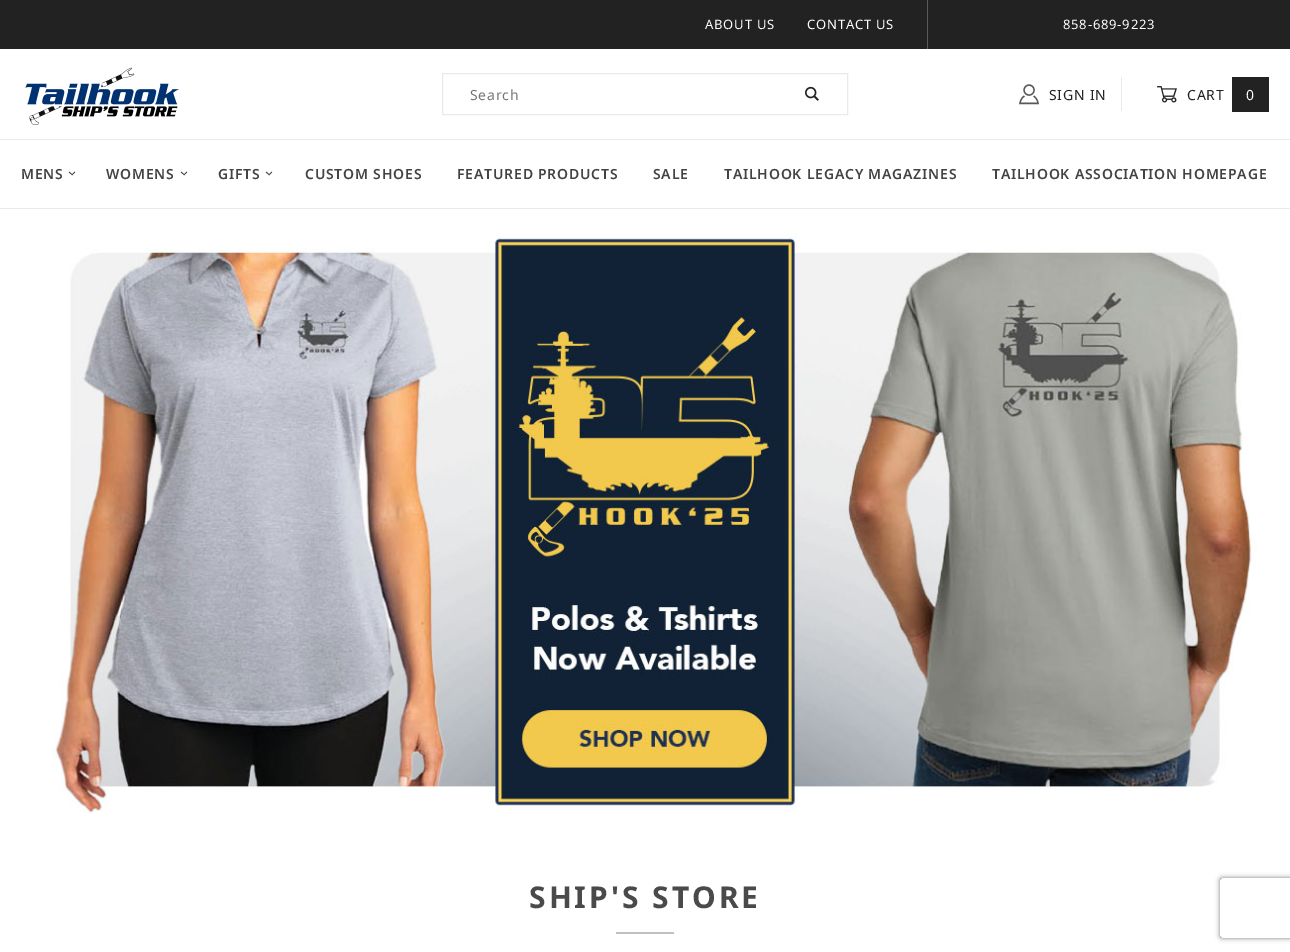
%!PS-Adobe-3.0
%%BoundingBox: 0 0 1290 952
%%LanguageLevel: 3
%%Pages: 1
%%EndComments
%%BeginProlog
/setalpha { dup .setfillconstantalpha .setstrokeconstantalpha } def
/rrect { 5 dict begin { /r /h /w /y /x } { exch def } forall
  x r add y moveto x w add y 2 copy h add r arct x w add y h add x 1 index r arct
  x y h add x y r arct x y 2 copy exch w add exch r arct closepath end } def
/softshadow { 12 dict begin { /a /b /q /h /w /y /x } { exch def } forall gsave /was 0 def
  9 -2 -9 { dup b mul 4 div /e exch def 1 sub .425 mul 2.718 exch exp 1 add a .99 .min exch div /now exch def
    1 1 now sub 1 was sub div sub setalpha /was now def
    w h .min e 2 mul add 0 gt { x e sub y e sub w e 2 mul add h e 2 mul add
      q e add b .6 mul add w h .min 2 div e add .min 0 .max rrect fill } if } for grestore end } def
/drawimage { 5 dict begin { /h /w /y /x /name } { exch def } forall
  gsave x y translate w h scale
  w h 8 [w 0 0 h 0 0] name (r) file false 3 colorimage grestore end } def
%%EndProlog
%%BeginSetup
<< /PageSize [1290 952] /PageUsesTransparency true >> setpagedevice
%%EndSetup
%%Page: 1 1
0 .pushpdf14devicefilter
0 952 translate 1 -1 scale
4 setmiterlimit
1 setgray
0 0 1290 952 rectfill
0.918 setgray
0 139 1290 1 rectfill
0.133 setgray
0 0 1290 49 rectfill
0.349 setgray
927 0 1 49 rectfill
(images/1.raw) 25 67 155 58 drawimage
0.918 setgray
442.5 73.5 405 41 rectstroke
(images/2.raw) 805 86 14 15 drawimage
1121 77 1 34 rectfill
(images/3.raw) 1019 84 20 21 drawimage
(images/4.raw) 1157 86 20 17 drawimage
0.133 setgray
1232 77 37 35 rectfill
0.918 setgray
0 208 1290 1 rectfill
(images/5.raw) 53 233 1204 580 drawimage
0.753 setgray
616 932 58 2 rectfill
gsave
newpath 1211 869 moveto 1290 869 lineto 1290 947 lineto 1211 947 lineto closepath 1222 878 moveto 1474 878 lineto 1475 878 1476 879 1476 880 curveto 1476 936 lineto 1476 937 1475 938 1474 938 curveto 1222 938 lineto 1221 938 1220 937 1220 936 curveto 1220 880 lineto 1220 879 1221 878 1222 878 curveto closepath eoclip newpath
0.502 setgray
1220 878 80 60 2 2.5 1 softshadow
grestore
/NotoSans-Regular [13 0 0 -13 0 0] selectfont
1 setgray
705 29 moveto 0.8 0 (ABOUT US) ashow
807 29 moveto 0.8 0 (CONTACT US) ashow
1063 29 moveto 0.8 0 (858-689-9223) ashow
/NotoSans-Regular [14 0 0 -14 0 0] selectfont
0.459 setgray
470 100 moveto 0.75 0 (Search) ashow
0.133 setgray
1049 100 moveto 0.75 0 (SIGN IN) ashow
1187 100 moveto 0.75 0 (CART) ashow
1 setgray
1246 100 moveto 0.75 0 (0) ashow
/NotoSans-SemiBold [14 0 0 -14 0 0] selectfont
0.263 setgray
21 179 moveto 0.8 0 (MENS) ashow
/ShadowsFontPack-Regular [7 0 0 -7 0 0] selectfont
gsave 69 170 translate 90 rotate 0 0 moveto 0.8 0 (3) ashow grestore
/NotoSans-SemiBold [14 0 0 -14 0 0] selectfont
106 179 moveto 0.8 0 (WOMENS) ashow
/ShadowsFontPack-Regular [7 0 0 -7 0 0] selectfont
gsave 181 170 translate 90 rotate 0 0 moveto 0.8 0 (3) ashow grestore
/NotoSans-SemiBold [14 0 0 -14 0 0] selectfont
218 179 moveto 0.8 0 (GIFTS) ashow
/ShadowsFontPack-Regular [7 0 0 -7 0 0] selectfont
gsave 266 170 translate 90 rotate 0 0 moveto 0.8 0 (3) ashow grestore
/NotoSans-SemiBold [14 0 0 -14 0 0] selectfont
305 179 moveto 0.8 0 (CUSTOM SHOES) ashow
457 179 moveto 0.8 0 (FEATURED PRODUCTS) ashow
653 179 moveto 0.8 0 (SALE) ashow
724 179 moveto 0.8 0 (TAILHOOK LEGACY MAGAZINES) ashow
992 179 moveto 0.8 0 (TAILHOOK ASSOCIATION HOMEPAGE) ashow
/NotoSans-Bold [30 0 0 -30 0 0] selectfont
0.29 setgray
529 908 moveto 3 0 (SHIP'S STORE) ashow
.poppdf14devicefilter showpage
%%EOF
